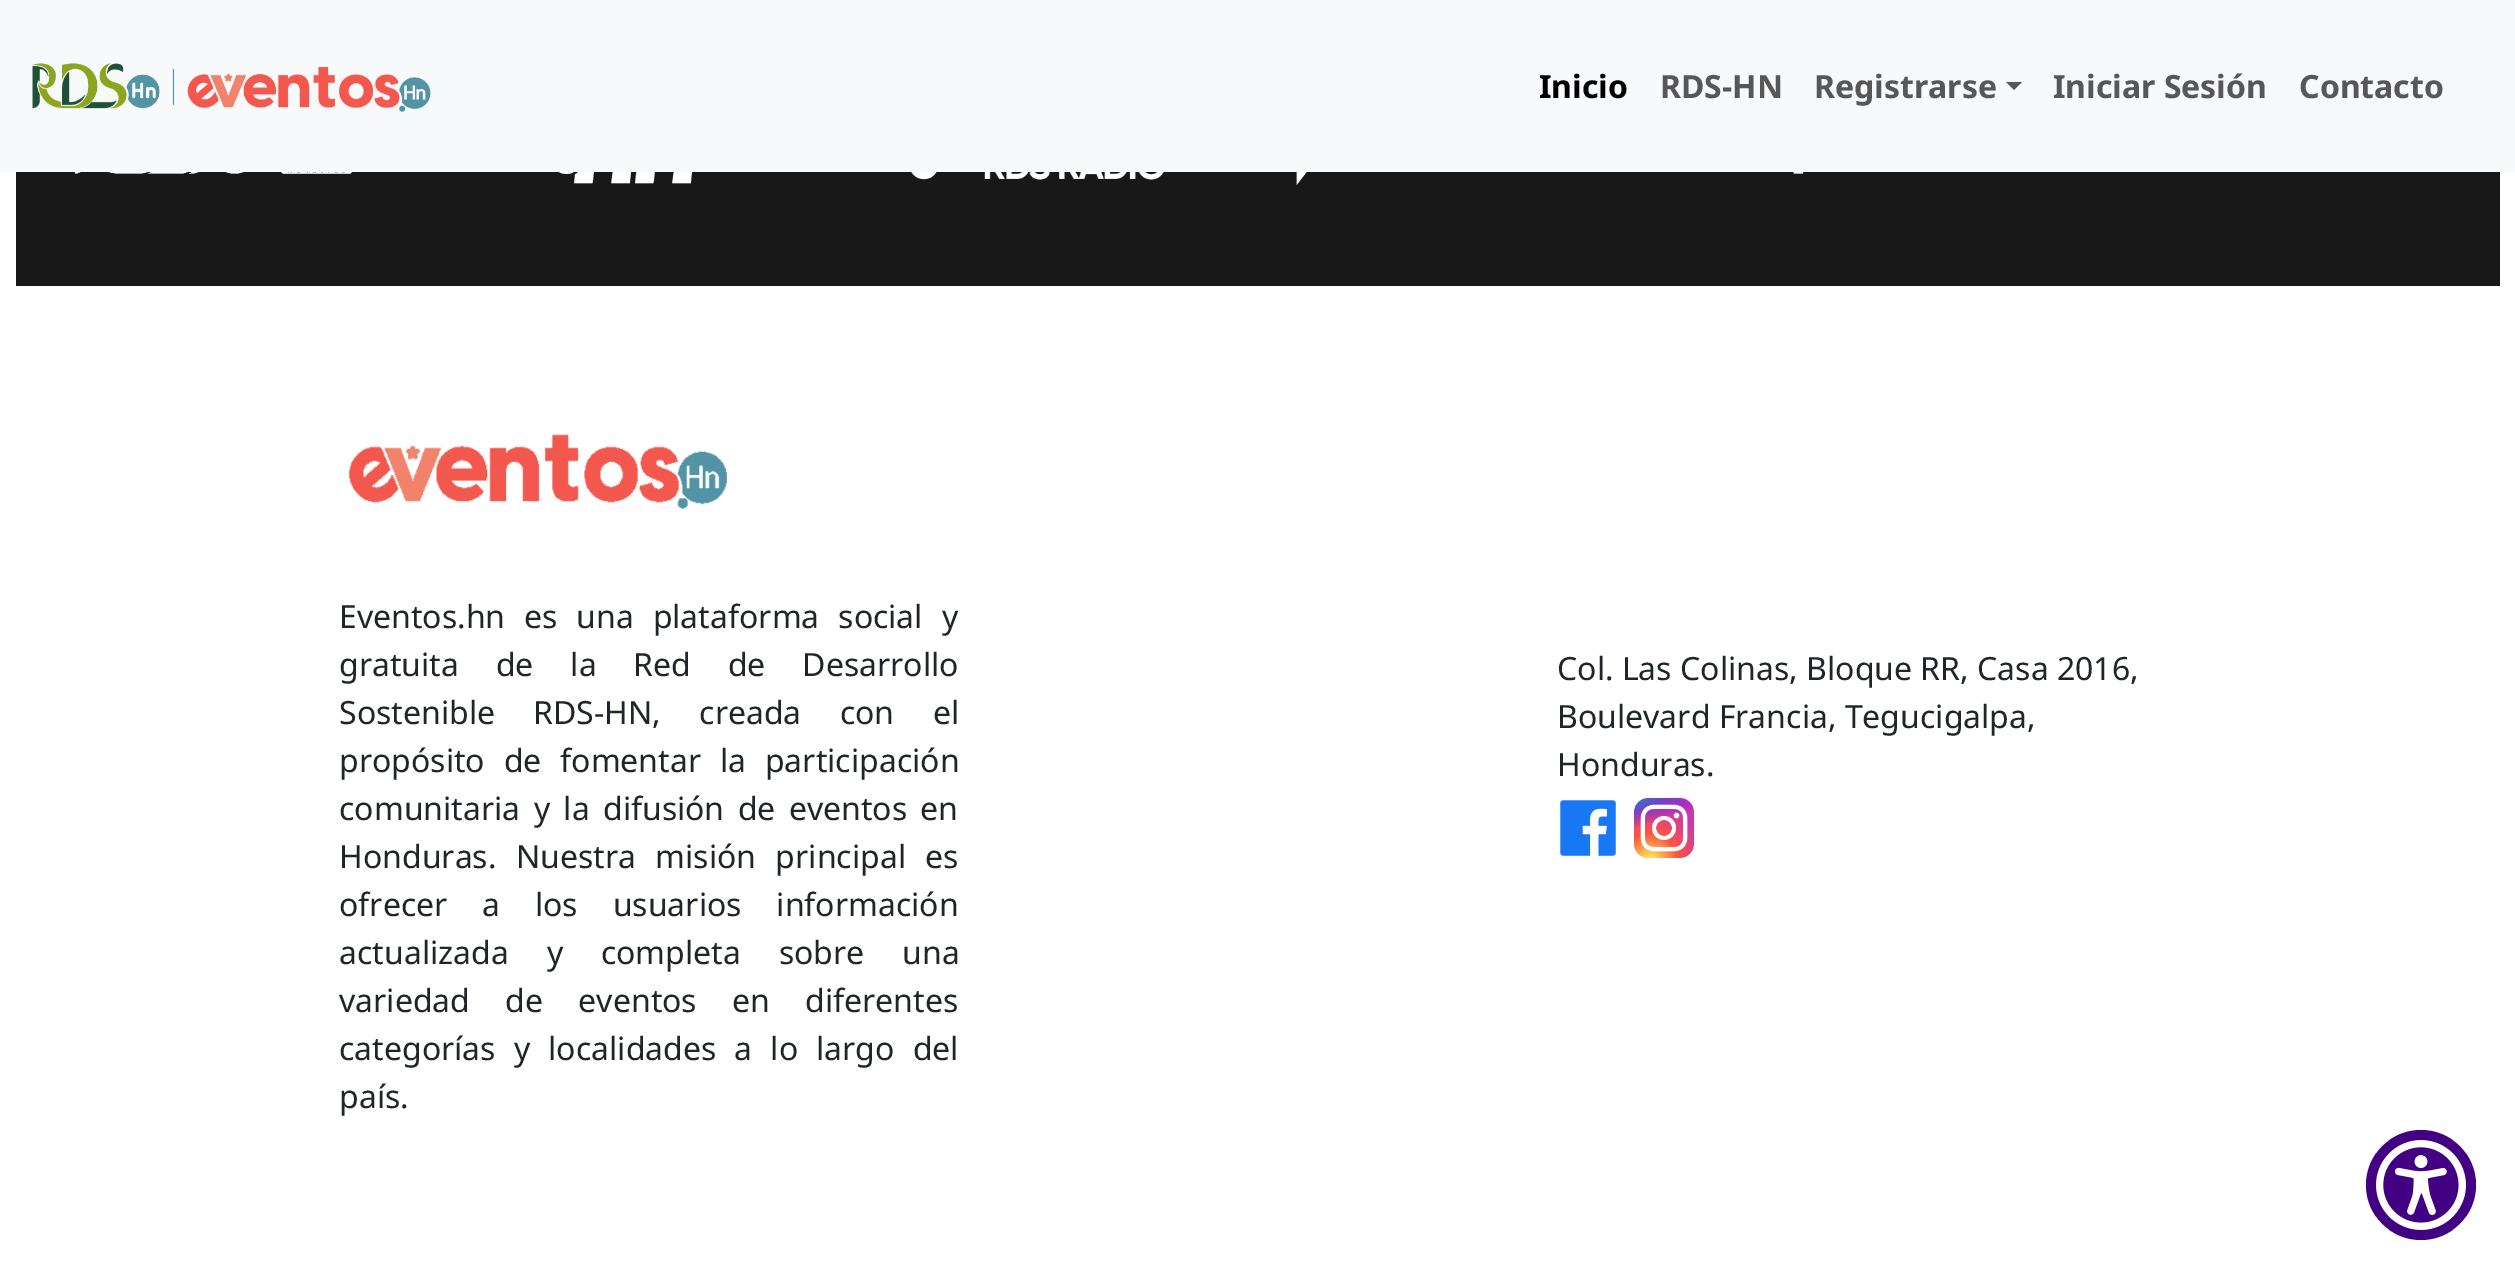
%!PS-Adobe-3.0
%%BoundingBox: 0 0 2515 1280
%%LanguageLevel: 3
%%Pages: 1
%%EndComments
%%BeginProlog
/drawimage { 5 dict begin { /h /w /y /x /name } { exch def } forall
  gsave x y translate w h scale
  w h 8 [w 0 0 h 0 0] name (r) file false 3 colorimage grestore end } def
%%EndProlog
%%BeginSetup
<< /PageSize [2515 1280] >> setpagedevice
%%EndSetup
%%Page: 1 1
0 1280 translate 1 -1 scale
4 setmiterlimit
1 setgray
0 0 2515 1280 rectfill
0.973 0.976 0.98 setrgbcolor
0 0 2515 172 rectfill
(images/1.raw) 32 63 399 50 drawimage
0.341 0.341 0.345 setrgbcolor
newpath 2006 82 moveto 2022 82 lineto 2014 90 lineto closepath fill
0.094 setgray
16 172 2484 114 rectfill
(images/2.raw) 74 172 278 2 drawimage
(images/3.raw) 558 172 135 12 drawimage
(images/4.raw) 911 172 253 8 drawimage
(images/5.raw) 1296 172 11 13 drawimage
(images/6.raw) 1793 172 11 2 drawimage
(images/7.raw) 349 434 378 76 drawimage
(images/8.raw) 1560 800 56 56 drawimage
(images/9.raw) 1634 798 60 60 drawimage
0.259 0 0.514 setrgbcolor
newpath 2421 1185 55 0 360 arc closepath fill
(images/10.raw) 2376 1140 90 90 drawimage
/NotoSans-Bold [32 0 0 -32 0 0] selectfont
0 setgray
1539 98 moveto (Inicio) show
0.341 0.341 0.345 setrgbcolor
1660 98 moveto (RDS-HN) show
1814 98 moveto (Registrarse) show
2053 98 moveto (Iniciar Sesión) show
2299 98 moveto (Contacto) show
/NotoSans-Regular [32 0 0 -32 0 0] selectfont
0.129 0.145 0.161 setrgbcolor
339 628 moveto 10.5 0 32 (Eventos.hn es una plataforma social y) widthshow
339 676 moveto 28.5 0 32 (gratuita de la Red de Desarrollo) widthshow
339 724 moveto 30 0 32 (Sostenible RDS-HN, creada con el) widthshow
339 772 moveto 10.5 0 32 (propósito de fomentar la participación) widthshow
339 820 moveto 5 0 32 (comunitaria y la difusión de eventos en) widthshow
339 868 moveto 11 0 32 (Honduras. Nuestra misión principal es) widthshow
339 916 moveto 26.5 0 32 (ofrecer a los usuarios información) widthshow
339 964 moveto 29.5 0 32 (actualizada y completa sobre una) widthshow
339 1012 moveto 27 0 32 (variedad de eventos en diferentes) widthshow
339 1060 moveto 9.75 0 32 (categorías y localidades a lo largo del) widthshow
339 1108 moveto (país.) show
1557 680 moveto (Col. Las Colinas, Bloque RR, Casa 2016,) show
1557 728 moveto (Boulevard Francia, Tegucigalpa,) show
1557 776 moveto (Honduras.) show
showpage
%%EOF
